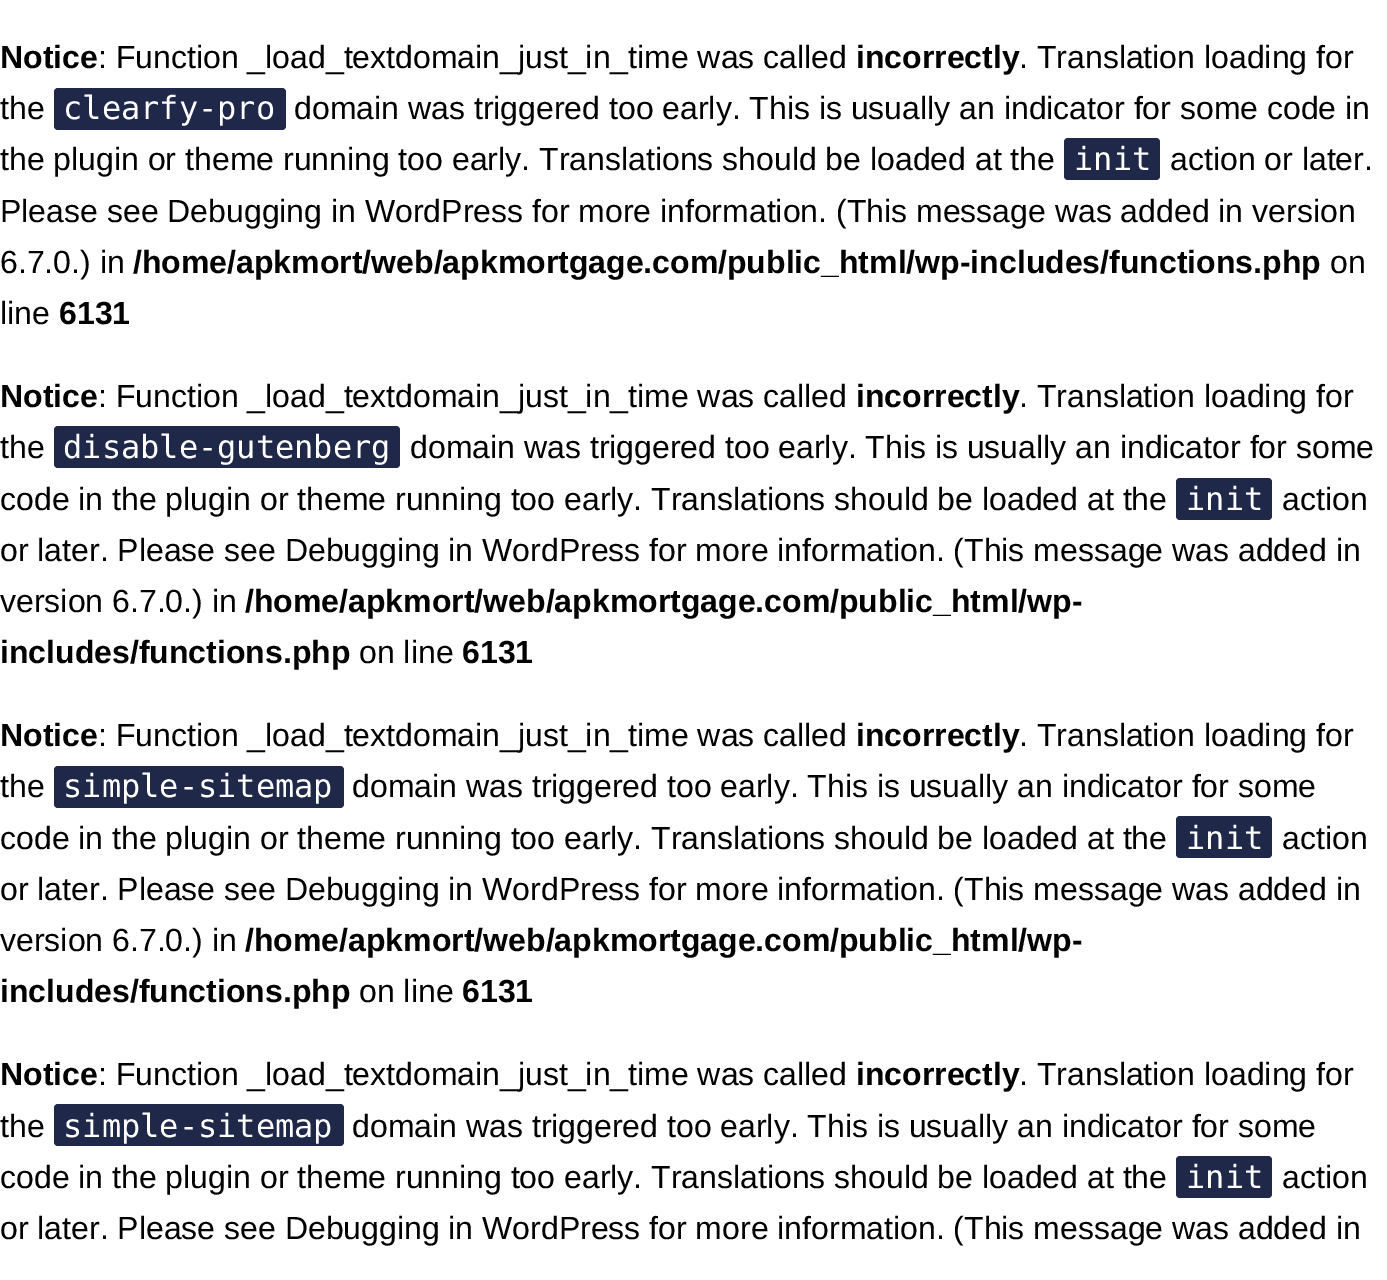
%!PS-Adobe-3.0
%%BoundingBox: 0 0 1387 1280
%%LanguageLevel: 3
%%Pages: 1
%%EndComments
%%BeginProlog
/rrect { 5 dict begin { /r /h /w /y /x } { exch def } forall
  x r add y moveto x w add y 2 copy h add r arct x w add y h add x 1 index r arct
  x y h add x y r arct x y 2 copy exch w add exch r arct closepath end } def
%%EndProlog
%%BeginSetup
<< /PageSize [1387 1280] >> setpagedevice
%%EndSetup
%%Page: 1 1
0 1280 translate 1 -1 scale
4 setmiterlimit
1 setgray
0 0 1387 1280 rectfill
0.125 0.157 0.29 setrgbcolor
54 88 232 42 4 rrect fill
1064 138 96 42 4 rrect fill
54 426 346 42 4 rrect fill
1176 478 96 42 4 rrect fill
54 766 290 42 4 rrect fill
1176 816 96 42 4 rrect fill
54 1104 290 42 4 rrect fill
1176 1156 96 42 4 rrect fill
/LiberationSans-Bold [32 0 0 -32 0 0] selectfont
0.004 setgray
0 68 moveto (Notice) show
/LiberationSans-Regular [32 0 0 -32 0 0] selectfont
98 68 moveto (: Function _load_textdomain_just_in_time was called) show
/LiberationSans-Bold [32 0 0 -32 0 0] selectfont
856 68 moveto (incorrectly) show
/LiberationSans-Regular [32 0 0 -32 0 0] selectfont
1019 68 moveto (. Translation loading for) show
0 119 moveto (the) show
/DejaVuSansMono-Regular [32 0 0 -32 0 0] selectfont
1 setgray
63 119 moveto (clearfy-pro) show
/LiberationSans-Regular [32 0 0 -32 0 0] selectfont
0.004 setgray
294 119 moveto (domain was triggered too early. This is usually an indicator for some code in) show
0 170 moveto (the plugin or theme running too early. Translations should be loaded at the) show
/DejaVuSansMono-Regular [32 0 0 -32 0 0] selectfont
1 setgray
1074 170 moveto (init) show
/LiberationSans-Regular [32 0 0 -32 0 0] selectfont
0.004 setgray
1170 170 moveto (action or later.) show
0 222 moveto (Please see Debugging in WordPress for more information. \(This message was added in version) show
0 273 moveto (6.7.0.\) in) show
/LiberationSans-Bold [32 0 0 -32 0 0] selectfont
133 273 moveto (/home/apkmort/web/apkmortgage.com/public_html/wp-includes/functions.php) show
/LiberationSans-Regular [32 0 0 -32 0 0] selectfont
1330 273 moveto (on) show
0 324 moveto (line) show
/LiberationSans-Bold [32 0 0 -32 0 0] selectfont
59 324 moveto (6131) show
0 407 moveto (Notice) show
/LiberationSans-Regular [32 0 0 -32 0 0] selectfont
98 407 moveto (: Function _load_textdomain_just_in_time was called) show
/LiberationSans-Bold [32 0 0 -32 0 0] selectfont
856 407 moveto (incorrectly) show
/LiberationSans-Regular [32 0 0 -32 0 0] selectfont
1019 407 moveto (. Translation loading for) show
0 458 moveto (the) show
/DejaVuSansMono-Regular [32 0 0 -32 0 0] selectfont
1 setgray
63 458 moveto (disable-gutenberg) show
/LiberationSans-Regular [32 0 0 -32 0 0] selectfont
0.004 setgray
410 458 moveto (domain was triggered too early. This is usually an indicator for some) show
0 510 moveto (code in the plugin or theme running too early. Translations should be loaded at the) show
/DejaVuSansMono-Regular [32 0 0 -32 0 0] selectfont
1 setgray
1186 510 moveto (init) show
/LiberationSans-Regular [32 0 0 -32 0 0] selectfont
0.004 setgray
1282 510 moveto (action) show
0 561 moveto (or later. Please see Debugging in WordPress for more information. \(This message was added in) show
0 612 moveto (version 6.7.0.\) in) show
/LiberationSans-Bold [32 0 0 -32 0 0] selectfont
245 612 moveto (/home/apkmort/web/apkmortgage.com/public_html/wp-) show
0 663 moveto (includes/functions.php) show
/LiberationSans-Regular [32 0 0 -32 0 0] selectfont
359 663 moveto (on line) show
/LiberationSans-Bold [32 0 0 -32 0 0] selectfont
462 663 moveto (6131) show
0 746 moveto (Notice) show
/LiberationSans-Regular [32 0 0 -32 0 0] selectfont
98 746 moveto (: Function _load_textdomain_just_in_time was called) show
/LiberationSans-Bold [32 0 0 -32 0 0] selectfont
856 746 moveto (incorrectly) show
/LiberationSans-Regular [32 0 0 -32 0 0] selectfont
1019 746 moveto (. Translation loading for) show
0 797 moveto (the) show
/DejaVuSansMono-Regular [32 0 0 -32 0 0] selectfont
1 setgray
63 797 moveto (simple-sitemap) show
/LiberationSans-Regular [32 0 0 -32 0 0] selectfont
0.004 setgray
352 797 moveto (domain was triggered too early. This is usually an indicator for some) show
0 849 moveto (code in the plugin or theme running too early. Translations should be loaded at the) show
/DejaVuSansMono-Regular [32 0 0 -32 0 0] selectfont
1 setgray
1186 849 moveto (init) show
/LiberationSans-Regular [32 0 0 -32 0 0] selectfont
0.004 setgray
1282 849 moveto (action) show
0 900 moveto (or later. Please see Debugging in WordPress for more information. \(This message was added in) show
0 951 moveto (version 6.7.0.\) in) show
/LiberationSans-Bold [32 0 0 -32 0 0] selectfont
245 951 moveto (/home/apkmort/web/apkmortgage.com/public_html/wp-) show
0 1002 moveto (includes/functions.php) show
/LiberationSans-Regular [32 0 0 -32 0 0] selectfont
359 1002 moveto (on line) show
/LiberationSans-Bold [32 0 0 -32 0 0] selectfont
462 1002 moveto (6131) show
0 1085 moveto (Notice) show
/LiberationSans-Regular [32 0 0 -32 0 0] selectfont
98 1085 moveto (: Function _load_textdomain_just_in_time was called) show
/LiberationSans-Bold [32 0 0 -32 0 0] selectfont
856 1085 moveto (incorrectly) show
/LiberationSans-Regular [32 0 0 -32 0 0] selectfont
1019 1085 moveto (. Translation loading for) show
0 1137 moveto (the) show
/DejaVuSansMono-Regular [32 0 0 -32 0 0] selectfont
1 setgray
63 1137 moveto (simple-sitemap) show
/LiberationSans-Regular [32 0 0 -32 0 0] selectfont
0.004 setgray
352 1137 moveto (domain was triggered too early. This is usually an indicator for some) show
0 1188 moveto (code in the plugin or theme running too early. Translations should be loaded at the) show
/DejaVuSansMono-Regular [32 0 0 -32 0 0] selectfont
1 setgray
1186 1188 moveto (init) show
/LiberationSans-Regular [32 0 0 -32 0 0] selectfont
0.004 setgray
1282 1188 moveto (action) show
0 1239 moveto (or later. Please see Debugging in WordPress for more information. \(This message was added in) show
showpage
%%EOF
